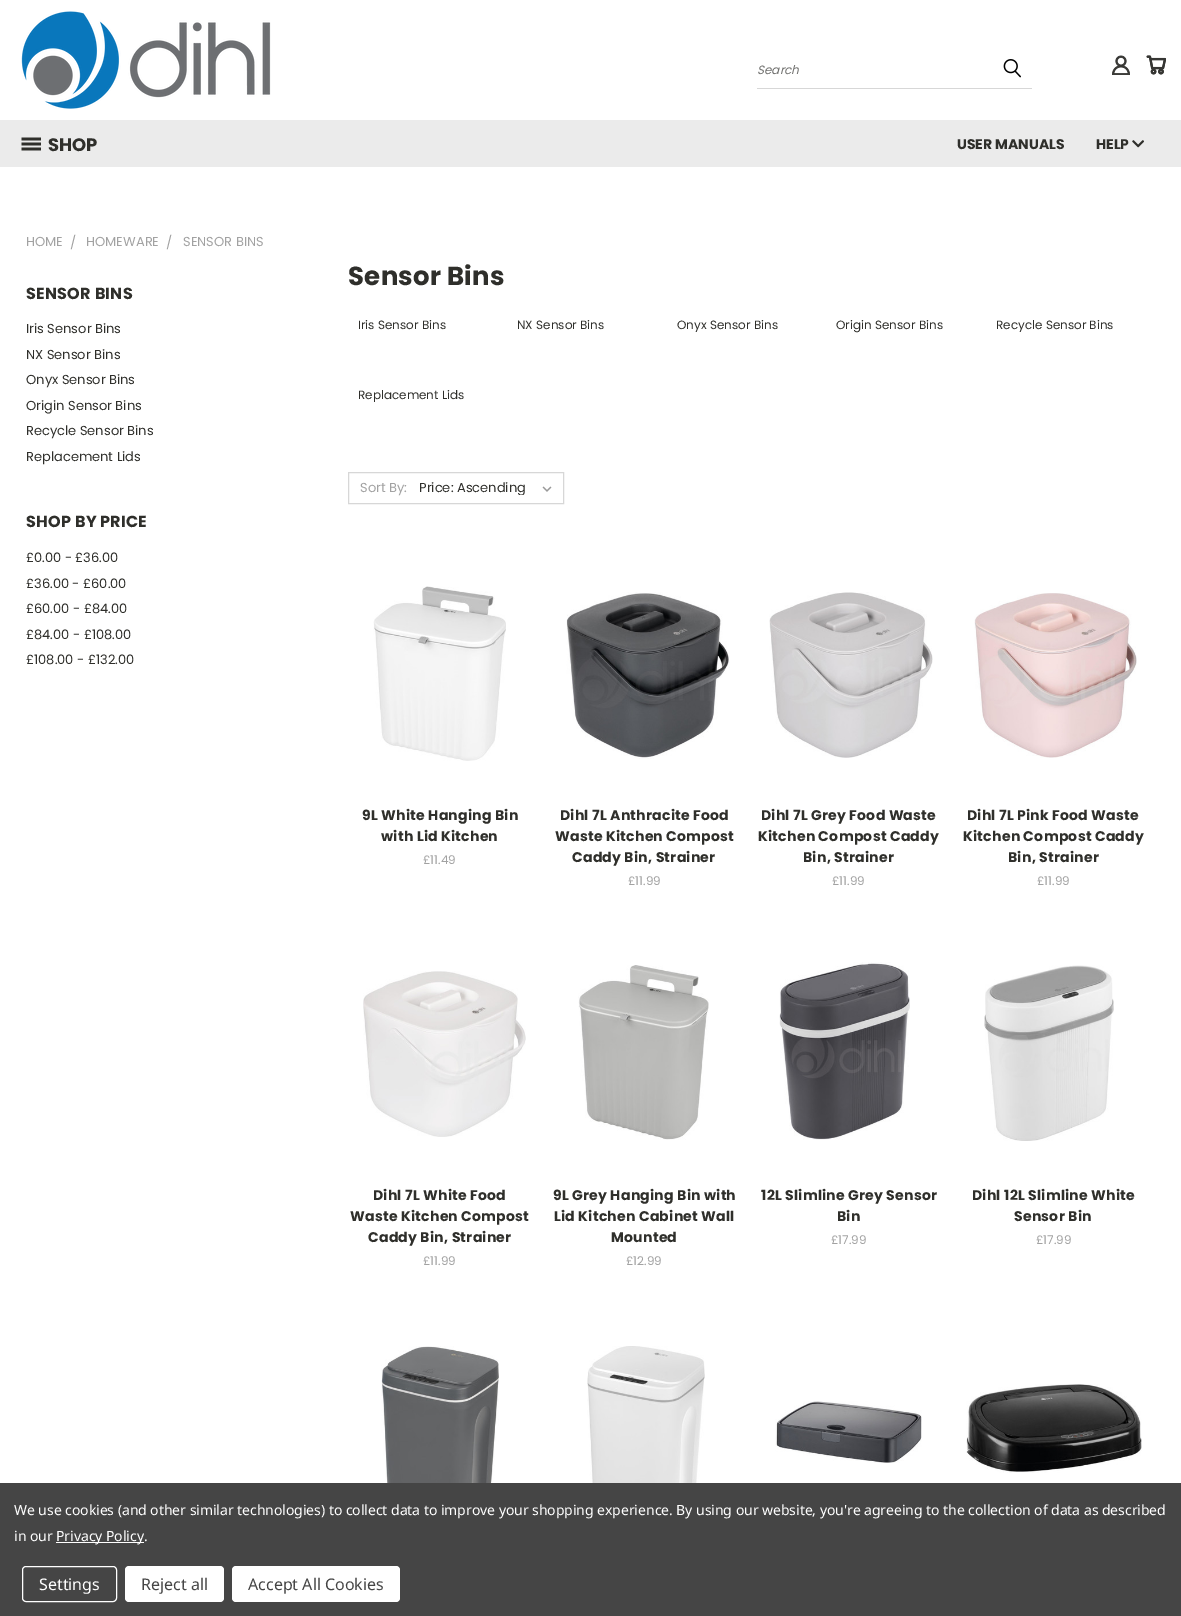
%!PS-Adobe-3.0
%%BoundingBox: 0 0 1181 1616
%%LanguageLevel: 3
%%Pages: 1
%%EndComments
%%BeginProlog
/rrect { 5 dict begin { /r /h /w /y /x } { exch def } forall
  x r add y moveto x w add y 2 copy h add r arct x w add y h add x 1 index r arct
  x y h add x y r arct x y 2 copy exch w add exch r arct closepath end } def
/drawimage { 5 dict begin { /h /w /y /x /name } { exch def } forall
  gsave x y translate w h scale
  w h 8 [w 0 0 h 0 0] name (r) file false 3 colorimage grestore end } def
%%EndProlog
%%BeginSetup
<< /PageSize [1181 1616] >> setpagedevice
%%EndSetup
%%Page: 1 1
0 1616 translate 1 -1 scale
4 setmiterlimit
1 setgray
0 0 1181 1616 rectfill
(images/1.raw) 21 11 250 98 drawimage
0.843 setgray
757 88 275 1 rectfill
(images/2.raw) 1003 59 18 19 drawimage
(images/3.raw) 1112 55 18 20 drawimage
(images/4.raw) 1146 55 20 20 drawimage
0.922 setgray
0 120 1181 47 rectfill
(images/5.raw) 21 137 20 14 drawimage
(images/6.raw) 1132 140 12 8 drawimage
0.843 setgray
348.5 472.5 215 31 rectstroke
(images/7.raw) 542 486 10 6 drawimage
(images/8.raw) 373 586 133 175 drawimage
(images/9.raw) 566 592 164 167 drawimage
(images/10.raw) 769 592 164 166 drawimage
(images/11.raw) 974 593 163 165 drawimage
(images/12.raw) 363 971 163 166 drawimage
(images/13.raw) 578 965 131 175 drawimage
(images/14.raw) 779 962 131 178 drawimage
(images/15.raw) 984 965 130 176 drawimage
(images/16.raw) 381 1346 118 137 drawimage
(images/17.raw) 587 1346 118 137 drawimage
(images/18.raw) 775 1401 147 62 drawimage
(images/19.raw) 966 1384 176 89 drawimage
0.271 setgray
0 1483 1181 133 rectfill
1 setgray
56 1542 88 1 rectfill
22.5 1566.5 94 35 3.5 rrect stroke
125 1566 99 36 4 rrect fill
232 1566 168 36 4 rrect fill
/Poppins-Italic [12 0 0 -12 0 0] selectfont
0.439 0.439 0.431 setrgbcolor
757 74 moveto (Search) show
/Poppins-Bold [18 0 0 -18 0 0] selectfont
0.184 0.184 0.169 setrgbcolor
48 151 moveto (SHOP) show
/Poppins-Bold [14 0 0 -14 0 0] selectfont
957 149 moveto (USER MANUALS) show
1096 149 moveto (HELP) show
/Poppins-Regular [13 0 0 -13 0 0] selectfont
0.635 setgray
26 246 moveto (HOME) show
70 247 moveto (/) show
86 246 moveto (HOMEWARE) show
166 247 moveto (/) show
183 246 moveto (SENSOR BINS) show
/Poppins-Bold [16 0 0 -16 0 0] selectfont
0.184 0.184 0.169 setrgbcolor
26 299 moveto 0.25 0 (SENSOR BINS) ashow
/Poppins-Regular [13 0 0 -13 0 0] selectfont
26 333 moveto (Iris Sensor Bins) show
26 359 moveto (NX Sensor Bins) show
26 384 moveto (Onyx Sensor Bins) show
26 410 moveto (Origin Sensor Bins) show
26 435 moveto (Recycle Sensor Bins) show
26 461 moveto (Replacement Lids) show
/Poppins-Bold [16 0 0 -16 0 0] selectfont
26 527 moveto 0.25 0 (SHOP BY PRICE) ashow
/Poppins-Regular [13 0 0 -13 0 0] selectfont
26 562 moveto (£0.00 - £36.00) show
26 588 moveto (£36.00 - £60.00) show
26 613 moveto (£60.00 - £84.00) show
26 639 moveto (£84.00 - £108.00) show
26 664 moveto (£108.00 - £132.00) show
/Poppins-Bold [26 0 0 -26 0 0] selectfont
348 285 moveto 0.25 0 (Sensor Bins) ashow
/Poppins-Regular [12 0 0 -12 0 0] selectfont
358 329 moveto (Iris Sensor Bins) show
517 329 moveto (NX Sensor Bins) show
677 329 moveto (Onyx Sensor Bins) show
836 329 moveto (Origin Sensor Bins) show
996 329 moveto (Recycle Sensor Bins) show
358 399 moveto (Replacement Lids) show
/Poppins-Regular [13 0 0 -13 0 0] selectfont
0.635 setgray
360 492 moveto (Sort By:) show
gsave
419 481 116 14 rectclip
0.184 0.184 0.169 setrgbcolor
419 492 moveto (Price: Ascending) show
grestore
/Poppins-Bold [14 0 0 -14 0 0] selectfont
0.184 0.184 0.169 setrgbcolor
362 820 moveto 0.25 0 (9L White Hanging Bin) ashow
381 841 moveto 0.25 0 (with Lid Kitchen) ashow
/Poppins-Regular [12 0 0 -12 0 0] selectfont
0.635 setgray
423 864 moveto (£11.49) show
/Poppins-Bold [14 0 0 -14 0 0] selectfont
0.184 0.184 0.169 setrgbcolor
560 820 moveto 0.25 0 (Dihl 7L Anthracite Food) ashow
555 841 moveto 0.25 0 (Waste Kitchen Compost) ashow
572 862 moveto 0.25 0 (Caddy Bin, Strainer) ashow
/Poppins-Regular [12 0 0 -12 0 0] selectfont
0.635 setgray
628 885 moveto (£11.99) show
/Poppins-Bold [14 0 0 -14 0 0] selectfont
0.184 0.184 0.169 setrgbcolor
761 820 moveto 0.25 0 (Dihl 7L Grey Food Waste) ashow
758 841 moveto 0.25 0 (Kitchen Compost Caddy) ashow
803 862 moveto 0.25 0 (Bin, Strainer) ashow
/Poppins-Regular [12 0 0 -12 0 0] selectfont
0.635 setgray
832 885 moveto (£11.99) show
/Poppins-Bold [14 0 0 -14 0 0] selectfont
0.184 0.184 0.169 setrgbcolor
967 820 moveto 0.25 0 (Dihl 7L Pink Food Waste) ashow
963 841 moveto 0.25 0 (Kitchen Compost Caddy) ashow
1008 862 moveto 0.25 0 (Bin, Strainer) ashow
/Poppins-Regular [12 0 0 -12 0 0] selectfont
0.635 setgray
1037 885 moveto (£11.99) show
/Poppins-Bold [14 0 0 -14 0 0] selectfont
0.184 0.184 0.169 setrgbcolor
373 1200 moveto 0.25 0 (Dihl 7L White Food) ashow
350 1221 moveto 0.25 0 (Waste Kitchen Compost) ashow
368 1242 moveto 0.25 0 (Caddy Bin, Strainer) ashow
/Poppins-Regular [12 0 0 -12 0 0] selectfont
0.635 setgray
423 1265 moveto (£11.99) show
/Poppins-Bold [14 0 0 -14 0 0] selectfont
0.184 0.184 0.169 setrgbcolor
553 1200 moveto 0.25 0 (9L Grey Hanging Bin with) ashow
554 1221 moveto 0.25 0 (Lid Kitchen Cabinet Wall) ashow
611 1242 moveto 0.25 0 (Mounted) ashow
/Poppins-Regular [12 0 0 -12 0 0] selectfont
0.635 setgray
626 1265 moveto (£12.99) show
/Poppins-Bold [14 0 0 -14 0 0] selectfont
0.184 0.184 0.169 setrgbcolor
761 1200 moveto 0.25 0 (12L Slimline Grey Sensor) ashow
837 1221 moveto 0.25 0 (Bin) ashow
/Poppins-Regular [12 0 0 -12 0 0] selectfont
0.635 setgray
831 1244 moveto (£17.99) show
/Poppins-Bold [14 0 0 -14 0 0] selectfont
0.184 0.184 0.169 setrgbcolor
972 1200 moveto 0.25 0 (Dihl 12L Slimline White) ashow
1014 1221 moveto 0.25 0 (Sensor Bin) ashow
/Poppins-Regular [12 0 0 -12 0 0] selectfont
0.635 setgray
1036 1244 moveto (£17.99) show
/NotoSans-Regular [14 0 0 -14 0 0] selectfont
1 setgray
14 1515 moveto -0.05 0 (We use cookies \(and other similar technologies\) to collect data to improve your shopping experience. By using our website, you're agreeing to the collection of data as described) ashow
14 1541 moveto -0.05 0 (in our) ashow
56 1541 moveto -0.05 0 (Privacy Policy.) ashow
/NotoSans-Regular [16 0 0 -16 0 0] selectfont
39 1590 moveto (Settings) show
0.271 setgray
141 1590 moveto (Reject all) show
248 1590 moveto (Accept All Cookies) show
showpage
%%EOF
